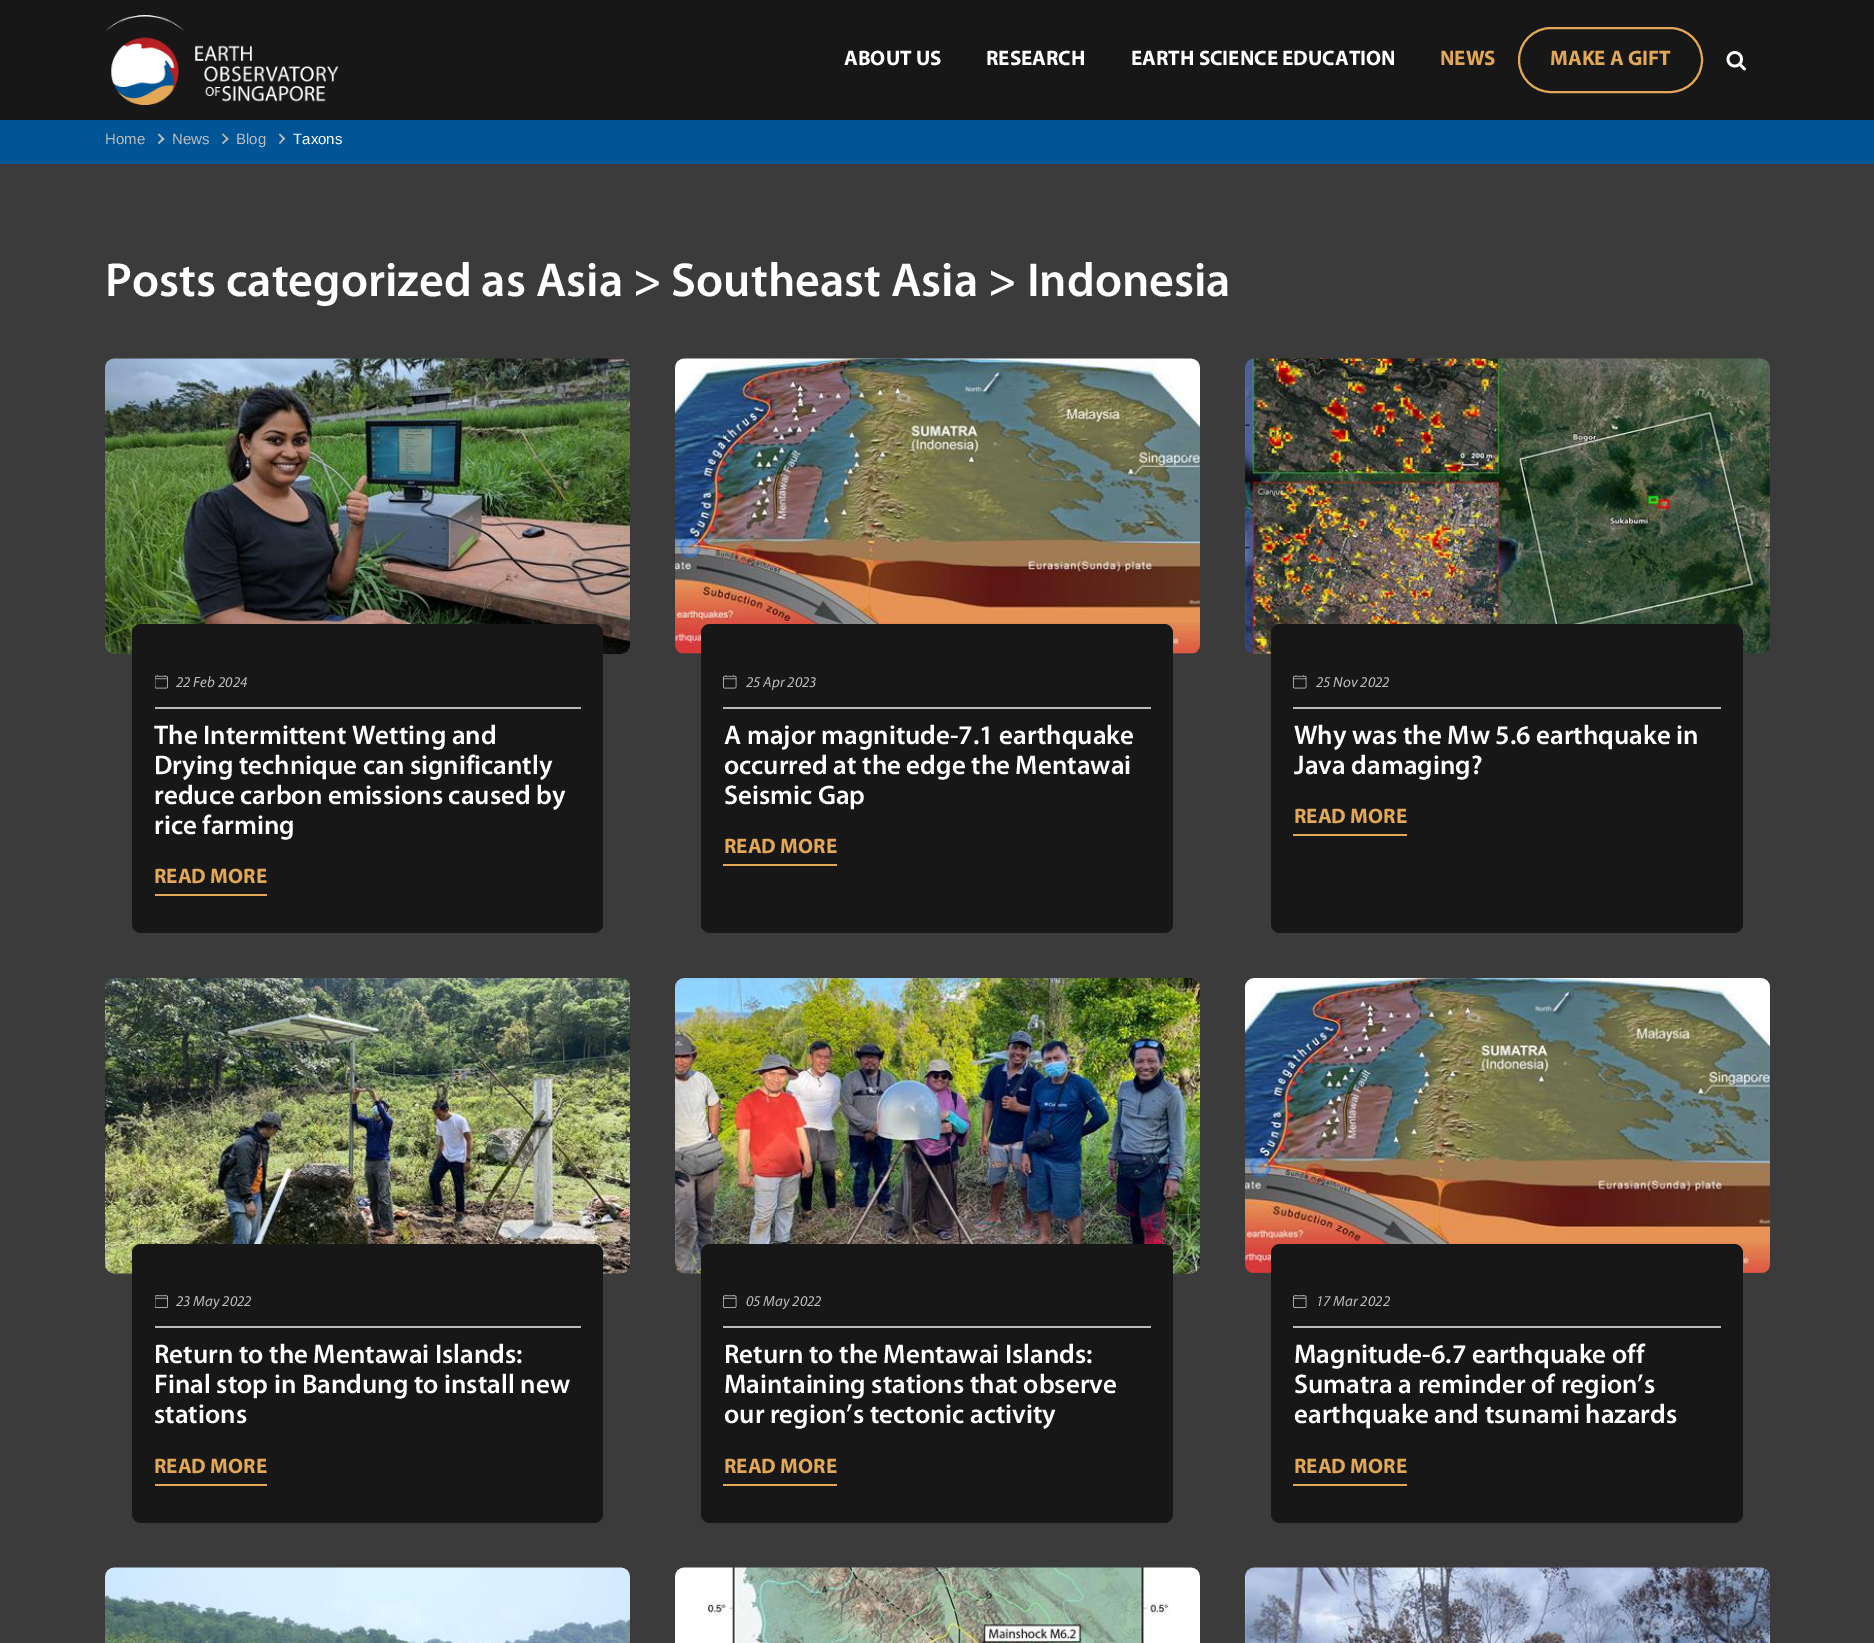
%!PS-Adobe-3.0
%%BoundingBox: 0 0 1874 1643
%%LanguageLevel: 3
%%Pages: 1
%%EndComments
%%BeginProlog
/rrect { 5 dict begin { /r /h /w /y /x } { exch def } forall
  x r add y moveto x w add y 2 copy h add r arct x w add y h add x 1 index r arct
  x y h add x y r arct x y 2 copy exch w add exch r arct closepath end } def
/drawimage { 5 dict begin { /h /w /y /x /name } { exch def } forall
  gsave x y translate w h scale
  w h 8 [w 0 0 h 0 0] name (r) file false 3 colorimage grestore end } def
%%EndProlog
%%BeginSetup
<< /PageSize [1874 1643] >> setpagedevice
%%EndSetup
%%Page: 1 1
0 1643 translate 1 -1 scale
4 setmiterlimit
0.09 setgray
0 0 1874 1643 rectfill
(images/1.raw) 105 15 234 90 drawimage
0.886 0.659 0.337 setrgbcolor
2 setlinewidth
1519 28 183 64 32 rrect stroke
(images/2.raw) 1726 51 20 20 drawimage
0 0.333 0.588 setrgbcolor
0 120 1874 44 rectfill
0.737 setgray
newpath 158 134.5 moveto 159 133.5 lineto 164.5 139 lineto 163 140 lineto closepath fill
newpath 158 143 moveto 163 137.5 lineto 164.5 139 lineto 159 144 lineto closepath fill
newpath 222 134.5 moveto 223 133.5 lineto 228.5 139 lineto 227.5 140 lineto closepath fill
newpath 222 143 moveto 227.5 137.5 lineto 228.5 139 lineto 223 144 lineto closepath fill
newpath 279 134.5 moveto 280 133.5 lineto 285 138.5 lineto 284 140 lineto closepath fill
newpath 279 143 moveto 284 137.5 lineto 285 138.5 lineto 280 144 lineto closepath fill
0.231 setgray
0 164 1874 1479 rectfill
(images/3.raw) 105 358 525 296 drawimage
0.09 setgray
132 624 471 309 9 rrect fill
0.737 setgray
155 707 426 2 rectfill
(images/4.raw) 155 675 13 14 drawimage
0.886 0.659 0.337 setrgbcolor
155 894 112 2 rectfill
(images/5.raw) 675 358 525 296 drawimage
0.09 setgray
701 624 472 309 9 rrect fill
0.737 setgray
723 707 428 2 rectfill
(images/6.raw) 723 675 14 14 drawimage
0.886 0.659 0.337 setrgbcolor
723 864 114 2 rectfill
(images/7.raw) 1245 358 525 296 drawimage
0.09 setgray
1271 624 472 309 9 rrect fill
0.737 setgray
1293 707 428 2 rectfill
(images/6.raw) 1293 675 14 14 drawimage
0.886 0.659 0.337 setrgbcolor
1293 834 114 2 rectfill
(images/8.raw) 105 978 525 296 drawimage
0.09 setgray
132 1244 471 279 9 rrect fill
0.737 setgray
155 1326 426 2 rectfill
(images/9.raw) 155 1295 13 13 drawimage
0.886 0.659 0.337 setrgbcolor
155 1484 112 2 rectfill
(images/10.raw) 675 978 525 296 drawimage
0.09 setgray
701 1244 472 279 9 rrect fill
0.737 setgray
723 1326 428 2 rectfill
(images/11.raw) 723 1295 14 13 drawimage
0.886 0.659 0.337 setrgbcolor
723 1484 114 2 rectfill
(images/12.raw) 1245 978 525 295 drawimage
0.09 setgray
1271 1244 472 279 9 rrect fill
0.737 setgray
1293 1326 428 2 rectfill
(images/11.raw) 1293 1295 14 13 drawimage
0.886 0.659 0.337 setrgbcolor
1293 1484 114 2 rectfill
(images/13.raw) 105 1567 525 76 drawimage
(images/14.raw) 675 1567 525 76 drawimage
(images/15.raw) 1245 1567 525 76 drawimage
/Myriad-Bold [21 0 0 -21 0 0] selectfont
1 setgray
844 65 moveto (ABOUT US) show
986 65 moveto (RESEARCH) show
1131 65 moveto (EARTH SCIENCE EDUCATION) show
0.886 0.659 0.337 setrgbcolor
1440 65 moveto (NEWS) show
1550 65 moveto (MAKE A GIFT) show
/LiberationSans-Regular [15 0 0 -15 0 0] selectfont
0.737 setgray
105 144 moveto (Home) show
172 144 moveto (News) show
236 144 moveto (Blog) show
1 setgray
293 144 moveto (Taxons) show
/Myriad-SemiBold [48 0 0 -48 0 0] selectfont
105 296 moveto (Posts categorized as Asia > Southeast Asia > Indonesia) show
/Myriad-Italic [15 0 0 -15 0 0] selectfont
0.737 setgray
176 687 moveto (22 Feb 2024) show
/Myriad-SemiBold [27 0 0 -27 0 0] selectfont
1 setgray
154 744 moveto (The Intermittent Wetting and) show
154 774 moveto (Drying technique can significantly) show
154 804 moveto (reduce carbon emissions caused by) show
154 834 moveto (rice farming) show
/Myriad-Bold [21 0 0 -21 0 0] selectfont
0.886 0.659 0.337 setrgbcolor
154 883 moveto (READ MORE) show
/Myriad-Italic [15 0 0 -15 0 0] selectfont
0.737 setgray
746 687 moveto (25 Apr 2023) show
/Myriad-SemiBold [27 0 0 -27 0 0] selectfont
1 setgray
724 744 moveto (A major magnitude-7.1 earthquake) show
724 774 moveto (occurred at the edge the Mentawai) show
724 804 moveto (Seismic Gap) show
/Myriad-Bold [21 0 0 -21 0 0] selectfont
0.886 0.659 0.337 setrgbcolor
724 853 moveto (READ MORE) show
/Myriad-Italic [15 0 0 -15 0 0] selectfont
0.737 setgray
1316 687 moveto (25 Nov 2022) show
/Myriad-SemiBold [27 0 0 -27 0 0] selectfont
1 setgray
1294 744 moveto (Why was the Mw 5.6 earthquake in) show
1294 774 moveto (Java damaging?) show
/Myriad-Bold [21 0 0 -21 0 0] selectfont
0.886 0.659 0.337 setrgbcolor
1294 823 moveto (READ MORE) show
/Myriad-Italic [15 0 0 -15 0 0] selectfont
0.737 setgray
176 1306 moveto (23 May 2022) show
/Myriad-SemiBold [27 0 0 -27 0 0] selectfont
1 setgray
154 1363 moveto (Return to the Mentawai Islands:) show
154 1393 moveto (Final stop in Bandung to install new) show
154 1423 moveto (stations) show
/Myriad-Bold [21 0 0 -21 0 0] selectfont
0.886 0.659 0.337 setrgbcolor
154 1473 moveto (READ MORE) show
/Myriad-Italic [15 0 0 -15 0 0] selectfont
0.737 setgray
746 1306 moveto (05 May 2022) show
/Myriad-SemiBold [27 0 0 -27 0 0] selectfont
1 setgray
724 1363 moveto (Return to the Mentawai Islands:) show
724 1393 moveto (Maintaining stations that observe) show
724 1423 moveto (our region’s tectonic activity) show
/Myriad-Bold [21 0 0 -21 0 0] selectfont
0.886 0.659 0.337 setrgbcolor
724 1473 moveto (READ MORE) show
/Myriad-Italic [15 0 0 -15 0 0] selectfont
0.737 setgray
1316 1306 moveto (17 Mar 2022) show
/Myriad-SemiBold [27 0 0 -27 0 0] selectfont
1 setgray
1294 1363 moveto (Magnitude-6.7 earthquake off) show
1294 1393 moveto (Sumatra a reminder of region’s) show
1294 1423 moveto (earthquake and tsunami hazards) show
/Myriad-Bold [21 0 0 -21 0 0] selectfont
0.886 0.659 0.337 setrgbcolor
1294 1473 moveto (READ MORE) show
showpage
%%EOF
